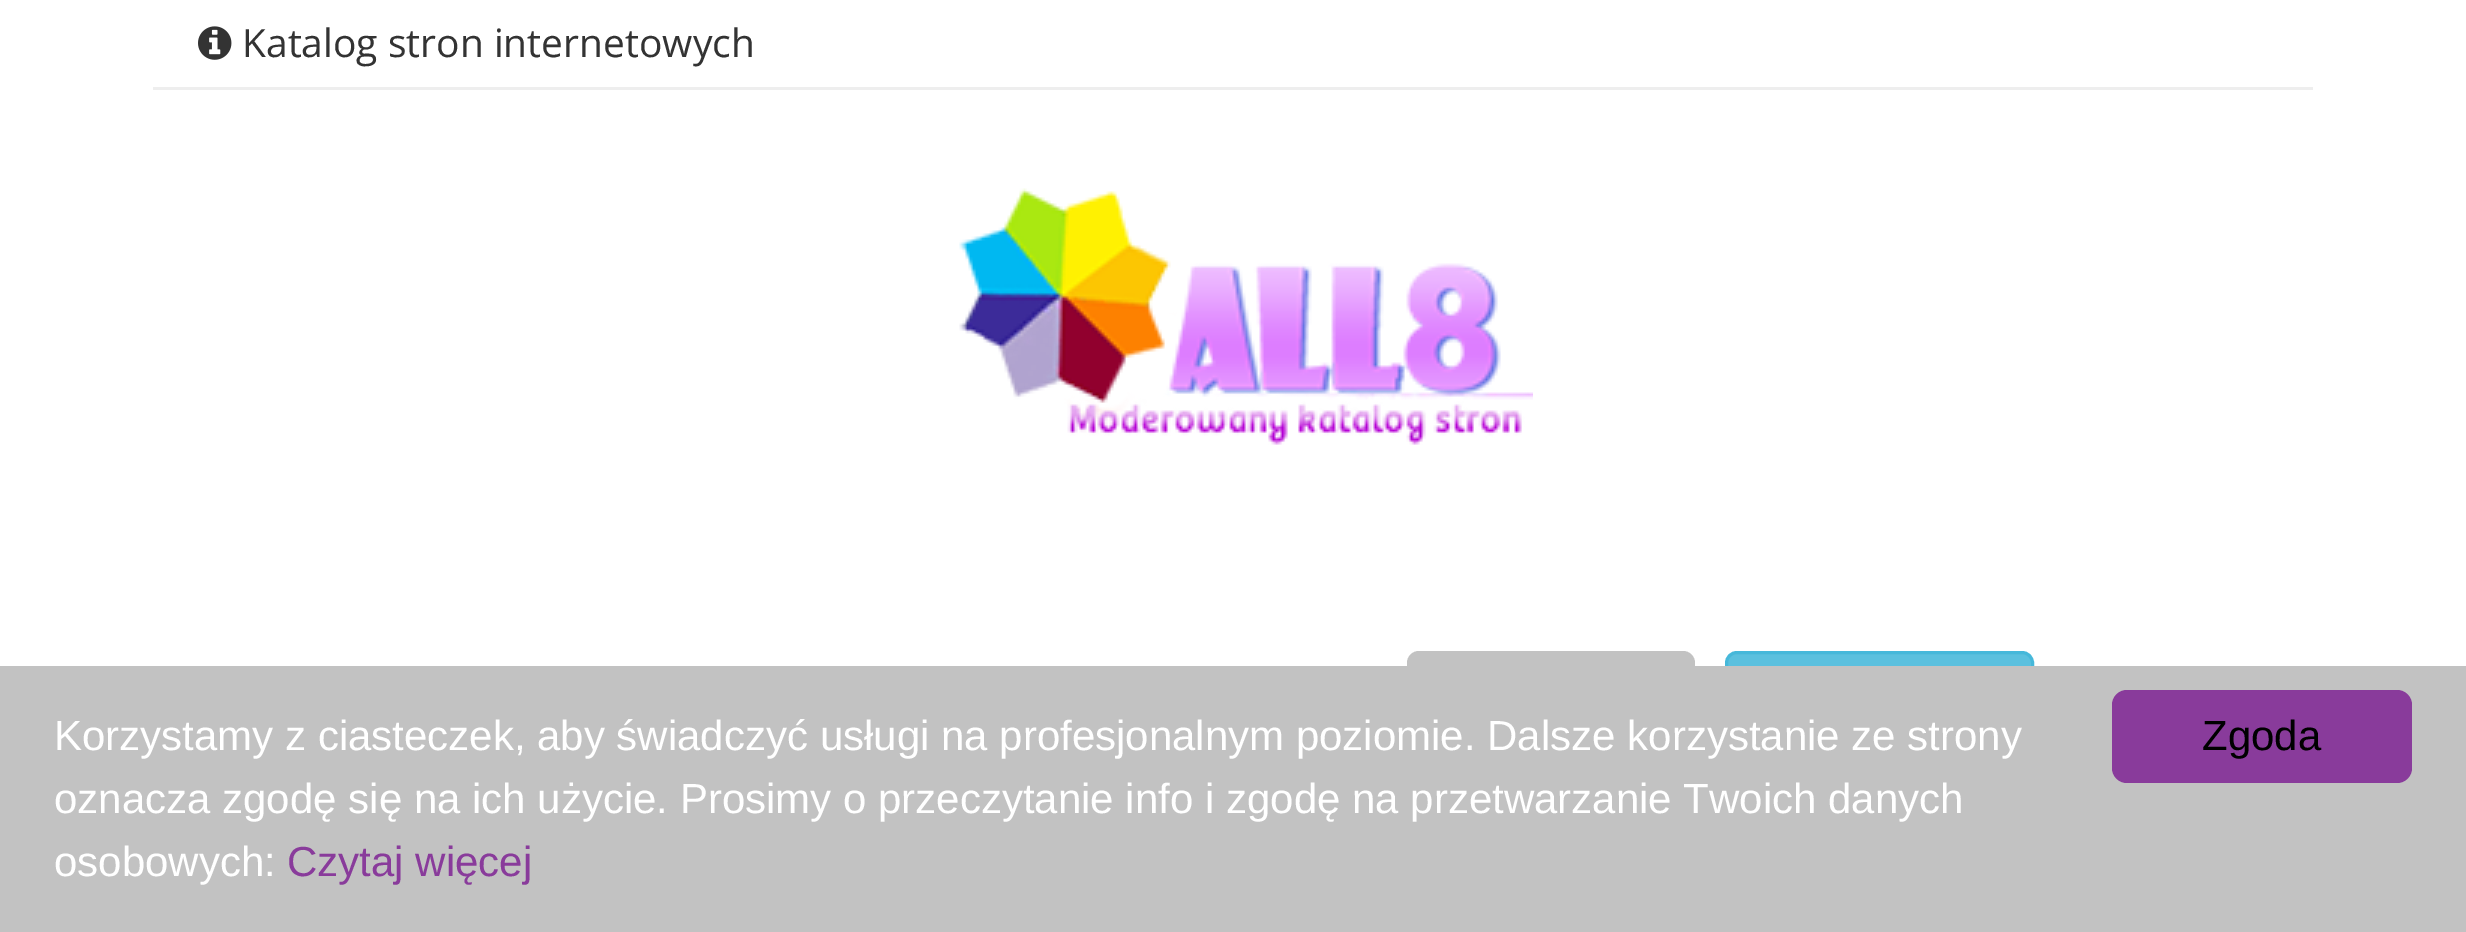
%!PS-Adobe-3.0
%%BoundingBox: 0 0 2466 932
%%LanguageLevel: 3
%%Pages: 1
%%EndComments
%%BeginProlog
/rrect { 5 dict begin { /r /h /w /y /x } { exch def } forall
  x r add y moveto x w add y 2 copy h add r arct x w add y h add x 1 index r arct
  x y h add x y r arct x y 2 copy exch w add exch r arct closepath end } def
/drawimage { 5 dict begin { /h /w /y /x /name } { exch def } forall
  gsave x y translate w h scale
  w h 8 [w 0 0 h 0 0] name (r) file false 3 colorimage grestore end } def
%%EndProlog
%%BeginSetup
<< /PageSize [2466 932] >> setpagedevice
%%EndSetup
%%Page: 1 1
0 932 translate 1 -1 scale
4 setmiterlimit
1 setgray
0 0 2466 932 rectfill
0.933 setgray
153 87 2160 3 rectfill
(images/1.raw) 198 26 34 34 drawimage
(images/2.raw) 959 188 574 257 drawimage
0.761 setgray
1407 651 288 102 12 rrect fill
0.357 0.753 0.871 setrgbcolor
1726.5 652.5 306 99 10.5 rrect gsave fill grestore
0.275 0.722 0.855 setrgbcolor
3 setlinewidth
stroke
0.761 setgray
0 666 2466 266 rectfill
0.537 0.231 0.608 setrgbcolor
2112 690 300 93 15 rrect fill
/OpenSans-Regular [39 0 0 -39 0 0] selectfont
0.2 setgray
242 57 moveto (Katalog stron internetowych) show
/LiberationSans-Regular [42 0 0 -42 0 0] selectfont
1 setgray
54 750 moveto (Korzystamy z ciasteczek, aby świadczyć usługi na profesjonalnym poziomie. Dalsze korzystanie ze strony) show
54 813 moveto (oznacza zgodę się na ich użycie. Prosimy o przeczytanie info i zgodę na przetwarzanie Twoich danych) show
54 876 moveto (osobowych:) show
0.537 0.231 0.608 setrgbcolor
287 876 moveto (Czytaj więcej) show
0 setgray
2202 750 moveto (Zgoda) show
showpage
%%EOF
